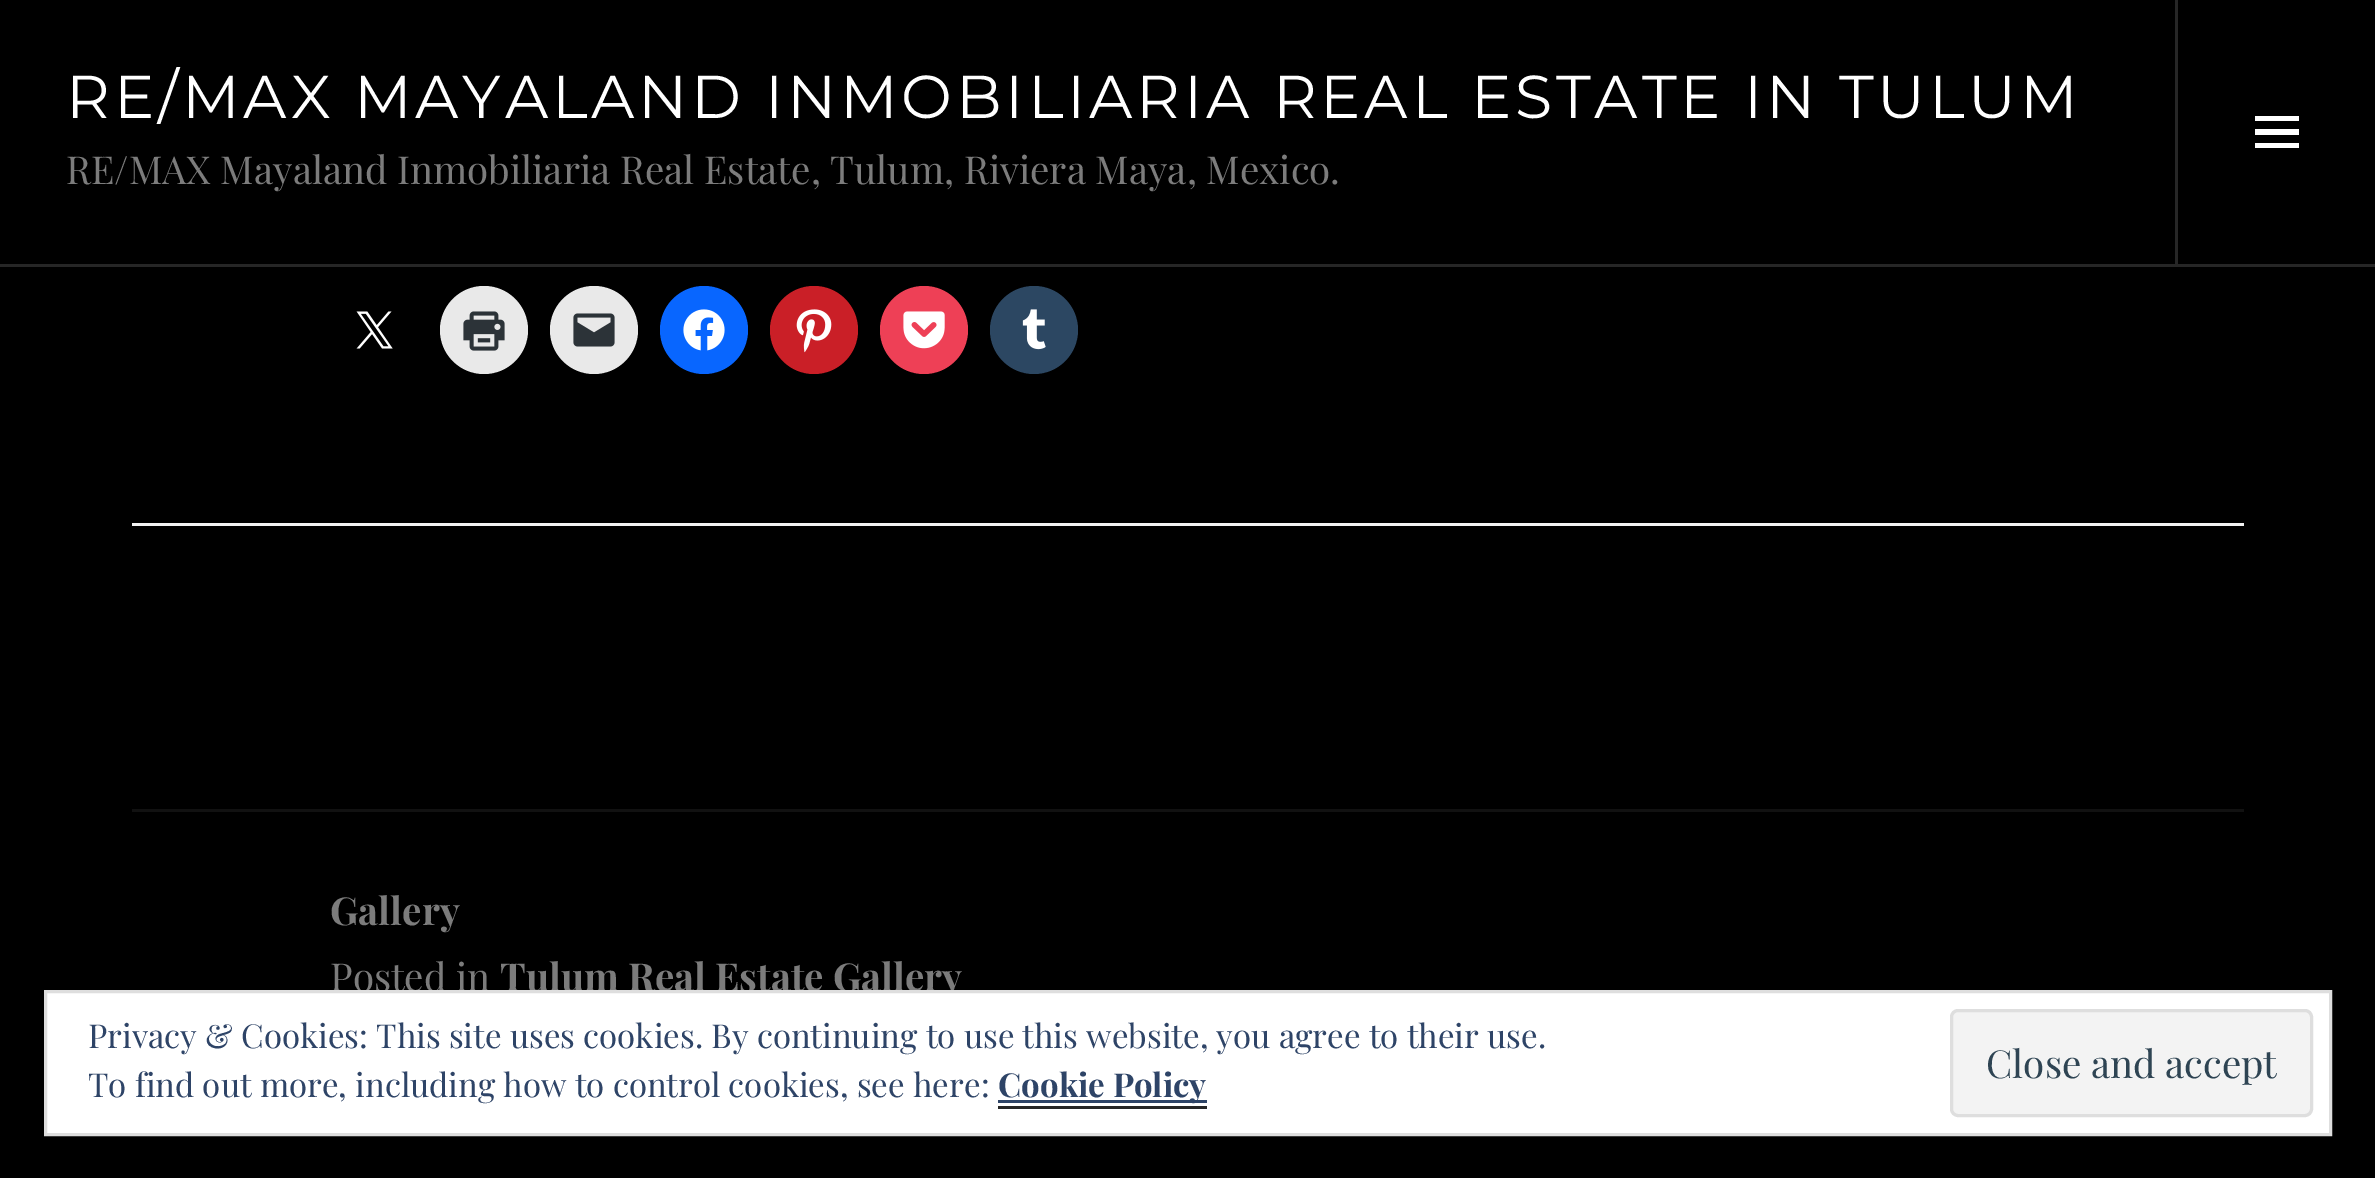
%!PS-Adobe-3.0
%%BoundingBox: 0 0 2375 1178
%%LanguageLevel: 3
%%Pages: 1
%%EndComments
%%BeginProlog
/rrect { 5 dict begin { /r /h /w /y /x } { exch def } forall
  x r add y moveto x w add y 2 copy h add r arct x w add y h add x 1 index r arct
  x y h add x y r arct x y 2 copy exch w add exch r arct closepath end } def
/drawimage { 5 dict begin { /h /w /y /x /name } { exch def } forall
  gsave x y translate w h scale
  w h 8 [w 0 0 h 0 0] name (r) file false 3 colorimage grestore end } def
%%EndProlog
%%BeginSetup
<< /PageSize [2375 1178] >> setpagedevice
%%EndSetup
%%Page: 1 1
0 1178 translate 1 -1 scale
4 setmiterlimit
0 setgray
0 0 2375 1178 rectfill
0.149 setgray
0 264 2375 3 rectfill
2175 0 3 264 rectfill
1 setgray
newpath 2255 148 moveto 2255 143 lineto 2299 143 lineto 2299 148 lineto closepath 2255 116 moveto 2299 116 lineto 2299 121 lineto 2255 121 lineto closepath 2255 135 moveto 2255 129 lineto 2299 129 lineto 2299 135 lineto closepath fill
(images/1.raw) 356 311 37 38 drawimage
0.914 setgray
newpath 484 330 44 0 360 arc closepath fill
(images/2.raw) 463 311 42 40 drawimage
newpath 594 330 44 0 360 arc closepath fill
(images/3.raw) 573 313 42 34 drawimage
0.031 0.4 1 setrgbcolor
newpath 704 330 44 0 360 arc closepath fill
(images/4.raw) 683 309 42 42 drawimage
0.792 0.122 0.153 setrgbcolor
newpath 814 330 44 0 360 arc closepath fill
(images/5.raw) 796 309 36 44 drawimage
0.933 0.251 0.337 setrgbcolor
newpath 924 330 44 0 360 arc closepath fill
(images/6.raw) 903 311 42 38 drawimage
0.173 0.278 0.384 setrgbcolor
newpath 1034 330 44 0 360 arc closepath fill
(images/7.raw) 1022 309 24 41 drawimage
0.949 setgray
132 523 2112 3 rectfill
0.067 setgray
132 809 2112 3 rectfill
/Montserrat-Regular [60.5 0 0 -60.5 0 0] selectfont
1 setgray
66 118 moveto 3.8 0 (RE/MAX MAYALAND INMOBILIARIA REAL ESTATE IN TULUM) ashow
/PlayfairDisplay-Regular [38.5 0 0 -38.5 0 0] selectfont
0.486 setgray
66 184 moveto (RE/MAX Mayaland Inmobiliaria Real Estate, Tulum, Riviera Maya, Mexico.) show
/PlayfairDisplay-Bold [38.5 0 0 -38.5 0 0] selectfont
330 925 moveto (Gallery) show
/PlayfairDisplay-Regular [38.5 0 0 -38.5 0 0] selectfont
330 991 moveto (Posted in) show
/PlayfairDisplay-Bold [38.5 0 0 -38.5 0 0] selectfont
500 991 moveto (Tulum Real Estate Gallery) show
1 setgray
newpath 45.5 991.5 moveto 2330.5 991.5 lineto 2330.5 1134.5 lineto 45.5 1134.5 lineto closepath gsave fill grestore
0.871 setgray
3 setlinewidth
stroke
/PlayfairDisplay-Regular [33 0 0 -33 0 0] selectfont
0.18 0.267 0.404 setrgbcolor
88 1048 moveto (Privacy & Cookies: This site uses cookies. By continuing to use this website, you agree to their use.) show
88 1097 moveto (To find out more, including how to control cookies, see here:) show
0.149 setgray
998 1106 209 3 rectfill
0.18 0.267 0.404 setrgbcolor
998 1100 209 3 rectfill
/PlayfairDisplay-Bold [33 0 0 -33 0 0] selectfont
998 1097 moveto (Cookie Policy) show
0.953 setgray
1951.5 1010.5 360 105 6.5 rrect gsave fill grestore
0.871 setgray
stroke
/PlayfairDisplay-Regular [38.5 0 0 -38.5 0 0] selectfont
0.18 0.267 0.325 setrgbcolor
1986 1078 moveto (Close and accept) show
showpage
%%EOF
